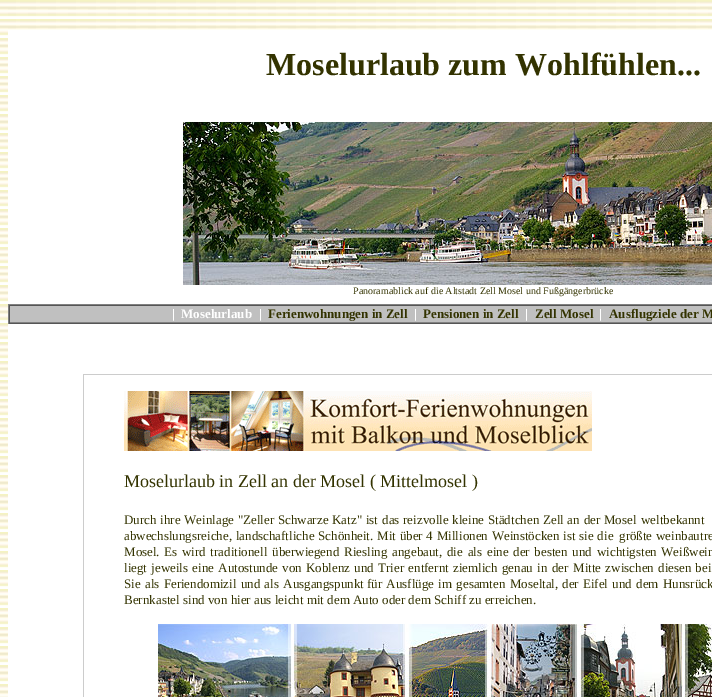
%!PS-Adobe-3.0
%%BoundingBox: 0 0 712 697
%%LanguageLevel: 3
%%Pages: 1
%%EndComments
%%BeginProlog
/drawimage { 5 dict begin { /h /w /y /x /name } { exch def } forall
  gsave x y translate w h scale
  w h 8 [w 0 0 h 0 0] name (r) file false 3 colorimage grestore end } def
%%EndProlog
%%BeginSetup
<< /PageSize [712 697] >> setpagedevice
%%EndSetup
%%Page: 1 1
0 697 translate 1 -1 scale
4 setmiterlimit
0.984 0.976 0.925 setrgbcolor
0 0 712 697 rectfill
(images/1.raw) 0 0 712 696 drawimage
1 setgray
8 30 704 667 rectfill
(images/2.raw) 183 122 288 163 drawimage
(images/3.raw) 471 122 241 163 drawimage
0.502 setgray
8 304 704 1 rectfill
0.333 setgray
8 323 704 1 rectfill
0.502 setgray
8 304 1 20 rectfill
0.753 setgray
10 306 702 16 rectfill
0.333 setgray
9 305 703 1 rectfill
0.502 setgray
9 322 703 1 rectfill
0.333 setgray
9 305 1 18 rectfill
0.8 setgray
83 374 629 323 rectfill
1 setgray
84 375 628 322 rectfill
(images/4.raw) 124 391 468 60 drawimage
(images/5.raw) 158 624 326 73 drawimage
(images/6.raw) 484 624 228 73 drawimage
/LiberationSerif-Bold [32 0 0 -32 0 0] selectfont
0.2 0.2 0 setrgbcolor
266 75 moveto (Moselurlaub zum Wohlfühlen...) show
/LiberationSerif-Regular [10 0 0 -10 0 0] selectfont
353 294 moveto (Panoramablick auf die Altstadt Zell Mosel und Fußgängerbrücke) show
/LiberationSerif-Bold [13 0 0 -13 0 0] selectfont
1 setgray
172 318 moveto (|) show
181 318 moveto (Moselurlaub) show
259 318 moveto (|) show
0.2 0.2 0 setrgbcolor
268 318 moveto (Ferienwohnungen in Zell) show
1 setgray
414 318 moveto (|) show
0.2 0.2 0 setrgbcolor
423 318 moveto (Pensionen in Zell) show
1 setgray
525 318 moveto (|) show
0.2 0.2 0 setrgbcolor
535 318 moveto (Zell Mosel) show
1 setgray
599 318 moveto (|) show
0.2 0.2 0 setrgbcolor
609 318 moveto (Ausflugziele der M) show
/LiberationSerif-Regular [18 0 0 -18 0 0] selectfont
124 487 moveto (Moselurlaub in Zell an der Mosel \( Mittelmosel \)) show
/LiberationSerif-Regular [13 0 0 -13 0 0] selectfont
124 524 moveto 0.5 0 32 (Durch ihre Weinlage "Zeller Schwarze Katz" ist) widthshow
382 524 moveto 0.5 0 32 (das reizvolle kleine Städtchen Zell an der Mosel) widthshow
641 524 moveto 1 0 32 (weltbekannt) widthshow
124 540 moveto 0.5 0 32 (abwechslungsreiche, landschaftliche Schönheit.) widthshow
377 540 moveto 0.5 0 32 (Mit über 4 Millionen Weinstöcken ist sie die) widthshow
619 540 moveto 0.5 0 32 (größte weinbautre) widthshow
124 556 moveto (Mosel.) show
164 556 moveto 1.5 0 32 (Es wird traditionell überwiegend Riesling) widthshow
392 556 moveto 1.5 0 32 (angebaut, die als eine der besten und) widthshow
597 556 moveto 1 0 32 (wichtigsten Weißwein) widthshow
124 572 moveto 1 0 32 (liegt jeweils eine Autostunde von) widthshow
306 572 moveto 1 0 32 (Koblenz und Trier entfernt ziemlich genau in der) widthshow
573 572 moveto 1 0 32 (Mitte zwischen diesen bei) widthshow
124 588 moveto 1 0 32 (Sie als Feriendomizil und als Ausgangspunkt) widthshow
367 588 moveto 1 0 32 (für Ausflüge im gesamten Moseltal,) widthshow
562 588 moveto 1 0 32 (der Eifel und dem Hunsrück) widthshow
124 604 moveto (Bernkastel sind von hier aus leicht mit dem Auto oder dem Schiff zu erreichen.) show
showpage
%%EOF
